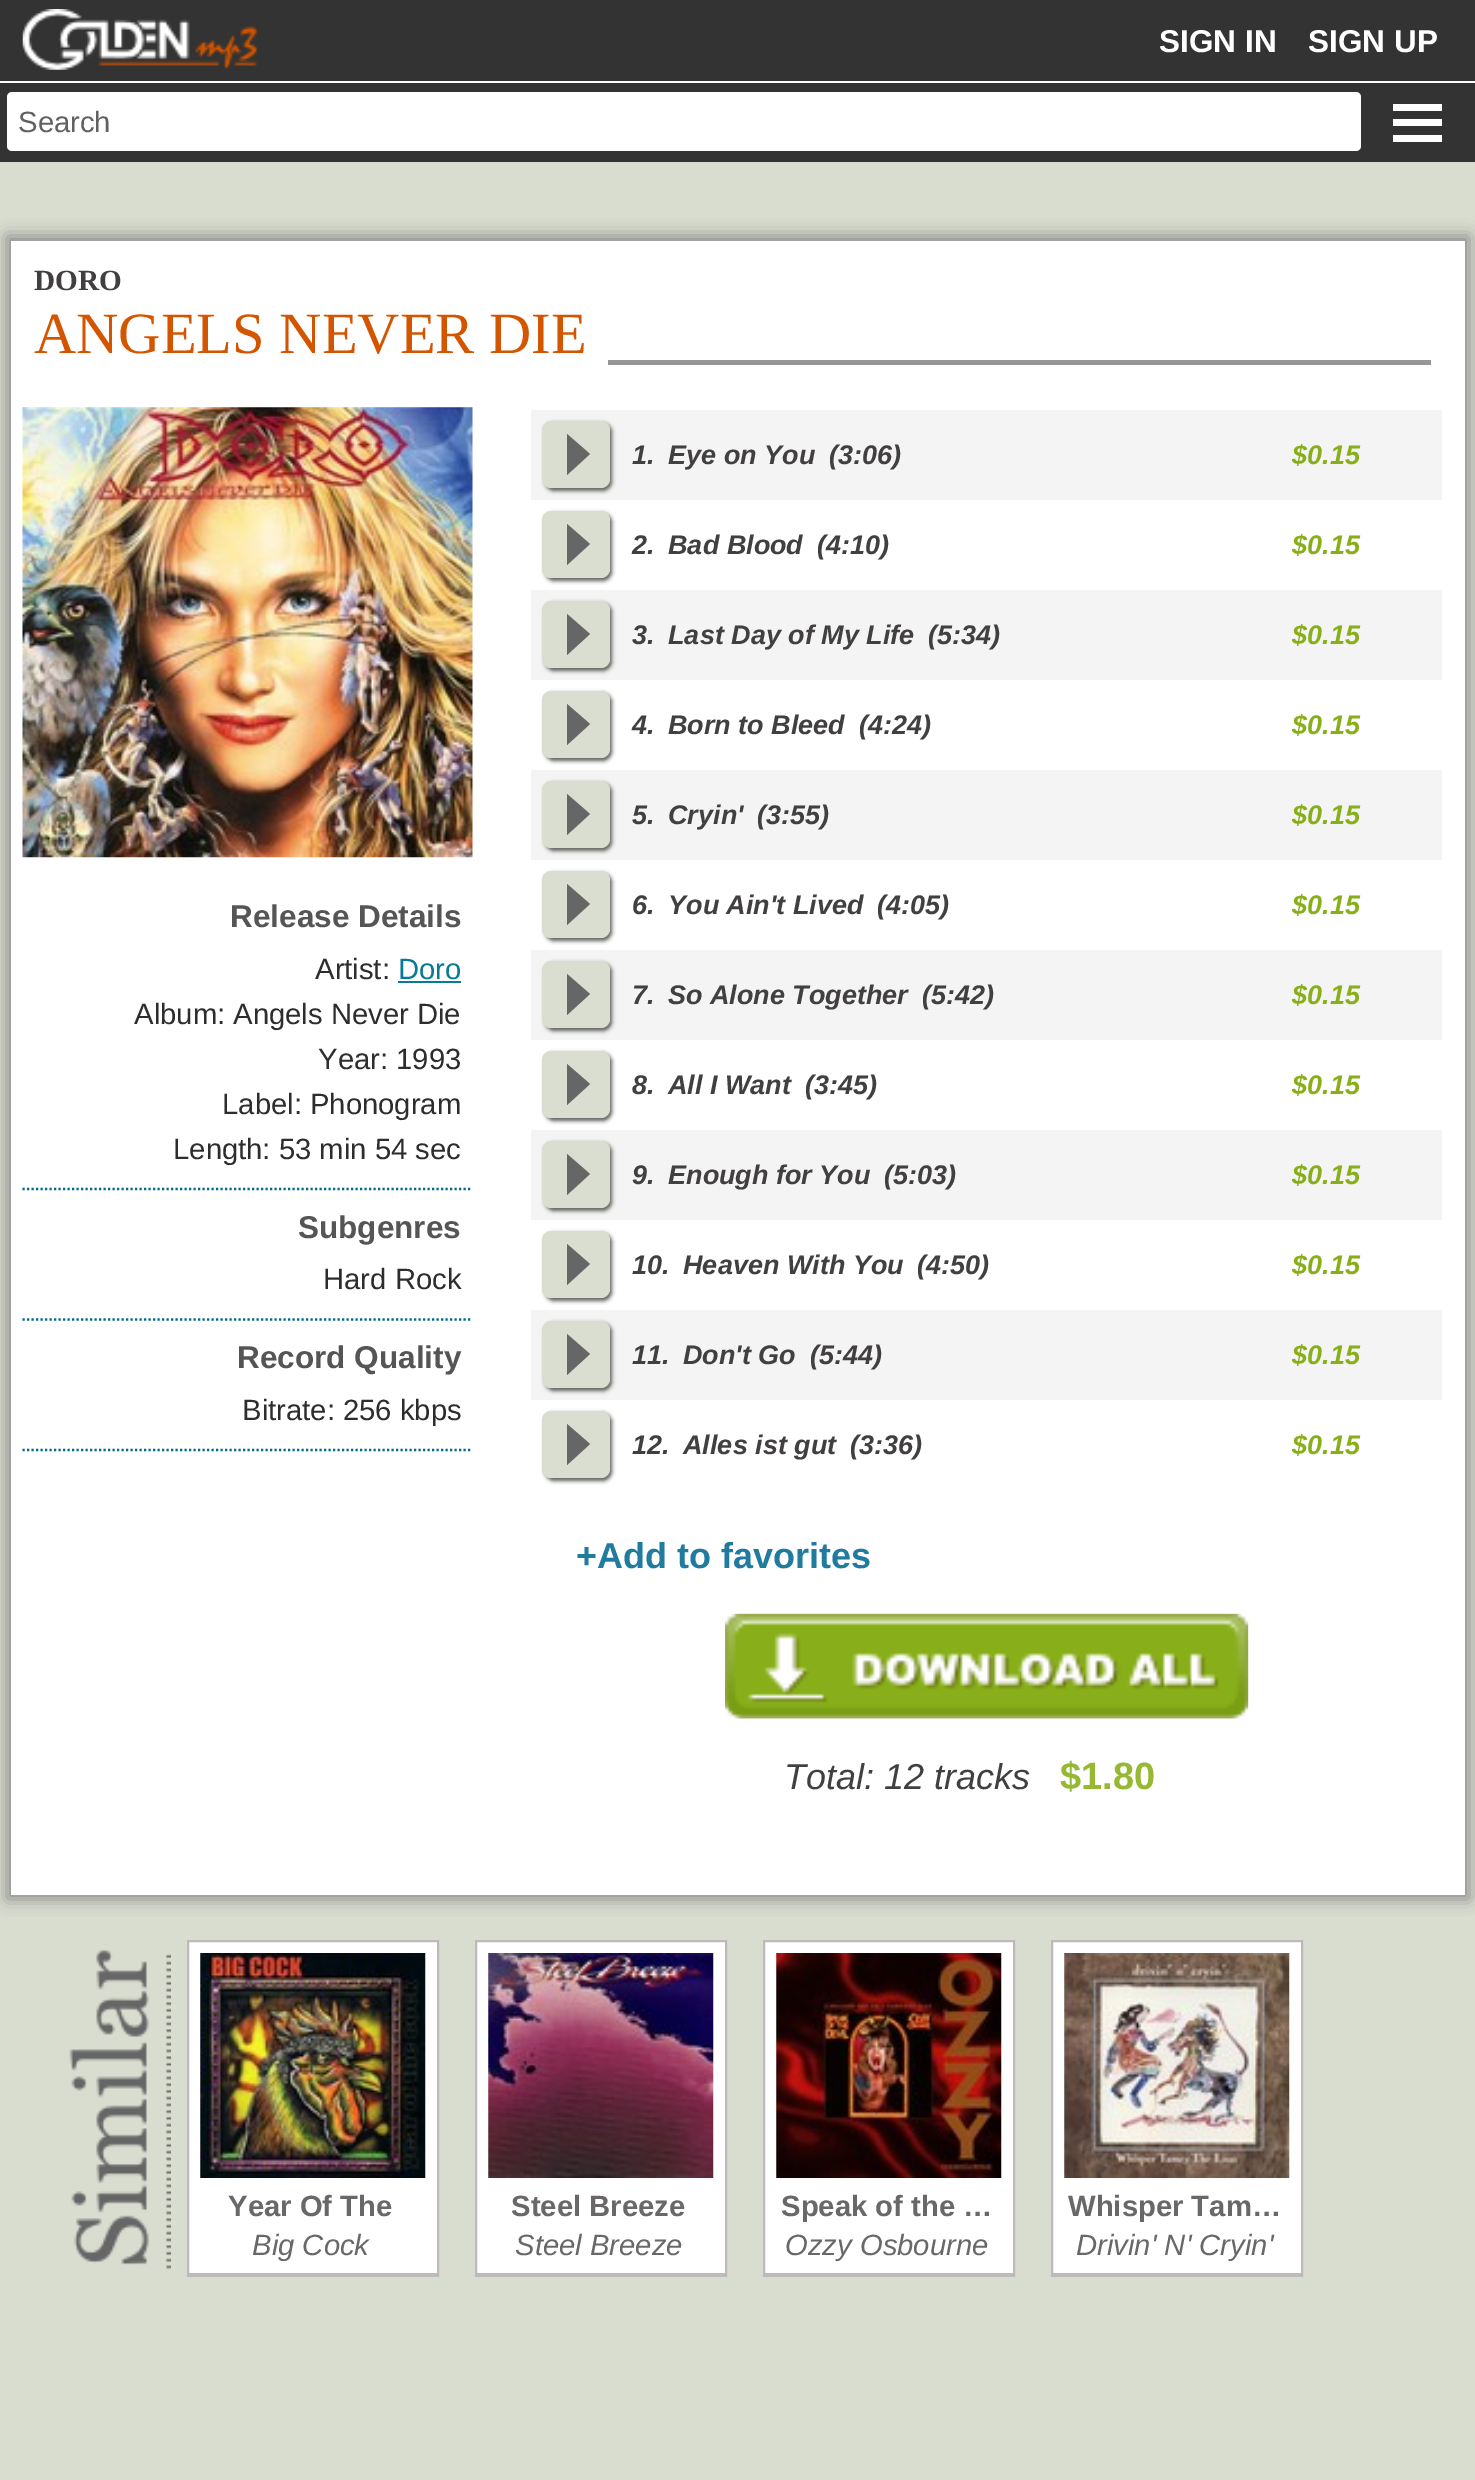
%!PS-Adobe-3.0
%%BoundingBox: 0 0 1475 2480
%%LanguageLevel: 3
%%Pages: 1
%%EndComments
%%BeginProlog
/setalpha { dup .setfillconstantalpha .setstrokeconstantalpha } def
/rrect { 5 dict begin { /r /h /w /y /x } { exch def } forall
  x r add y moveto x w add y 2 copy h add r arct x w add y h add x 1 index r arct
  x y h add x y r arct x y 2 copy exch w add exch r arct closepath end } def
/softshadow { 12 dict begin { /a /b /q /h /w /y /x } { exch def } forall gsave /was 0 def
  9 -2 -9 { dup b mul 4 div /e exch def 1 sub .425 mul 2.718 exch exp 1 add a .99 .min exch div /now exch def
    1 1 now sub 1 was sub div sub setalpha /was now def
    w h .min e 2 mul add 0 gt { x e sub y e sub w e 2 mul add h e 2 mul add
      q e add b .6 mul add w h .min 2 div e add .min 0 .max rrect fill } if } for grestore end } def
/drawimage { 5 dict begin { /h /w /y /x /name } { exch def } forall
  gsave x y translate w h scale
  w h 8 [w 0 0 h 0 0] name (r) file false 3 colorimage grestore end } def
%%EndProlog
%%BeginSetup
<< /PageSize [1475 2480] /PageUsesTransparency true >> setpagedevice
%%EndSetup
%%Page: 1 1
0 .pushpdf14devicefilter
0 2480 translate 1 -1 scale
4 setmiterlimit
0.851 0.867 0.812 setrgbcolor
0 0 1475 2480 rectfill
0.2 setgray
0 0 1475 162 rectfill
(images/1.raw) 22 9 236 61 drawimage
1 setgray
7 92 1354 59 5 rrect fill
0 81 1475 2 rectfill
1393 104 49 7 rectfill
1393 135 49 7 rectfill
1393 119 49 7 rectfill
0.533 setgray
7 236 1462 1663 0 8 1 softshadow
1 setgray
11 241 1454 1654 rectfill
0.588 setgray
608 360 823 5 rectfill
(images/2.raw) 22 407 451 451 drawimage
0 0.42 0.533 setrgbcolor
2.2 setlinewidth
[2.25 2.25] 0 setdash
newpath 22.5 1189 moveto 472.5 1189 lineto stroke
0.027 0.482 0.584 setrgbcolor
398 981 63 2 rectfill
0 0.42 0.533 setrgbcolor
newpath 22.5 1319.5 moveto 472.5 1319.5 lineto stroke
newpath 22.5 1450 moveto 472.5 1450 lineto stroke
0.957 setgray
531 410 911 90 rectfill
0.373 0.38 0.357 setrgbcolor
545 423 67 68 9 2 1 softshadow
0.855 0.871 0.816 setrgbcolor
542 421 68 67 9 rrect fill
0.4 setgray
newpath 567 475 moveto 567 434 lineto 590 454 lineto closepath fill
0.373 0.38 0.357 setrgbcolor
545 513 67 68 9 2 1 softshadow
0.855 0.871 0.816 setrgbcolor
542 511 68 67 9 rrect fill
0.4 setgray
newpath 567 565 moveto 567 524 lineto 590 544 lineto closepath fill
0.957 setgray
531 590 911 90 rectfill
0.373 0.38 0.357 setrgbcolor
545 603 67 68 9 2 1 softshadow
0.855 0.871 0.816 setrgbcolor
542 601 68 67 9 rrect fill
0.4 setgray
newpath 567 655 moveto 567 614 lineto 590 634 lineto closepath fill
0.373 0.38 0.357 setrgbcolor
545 693 67 68 9 2 1 softshadow
0.855 0.871 0.816 setrgbcolor
542 691 68 67 9 rrect fill
0.4 setgray
newpath 567 745 moveto 567 704 lineto 590 724 lineto closepath fill
0.957 setgray
531 770 911 90 rectfill
0.373 0.38 0.357 setrgbcolor
545 783 67 68 9 2 1 softshadow
0.855 0.871 0.816 setrgbcolor
542 781 68 67 9 rrect fill
0.4 setgray
newpath 567 835 moveto 567 794 lineto 590 814 lineto closepath fill
0.373 0.38 0.357 setrgbcolor
545 873 67 68 9 2 1 softshadow
0.855 0.871 0.816 setrgbcolor
542 871 68 67 9 rrect fill
0.4 setgray
newpath 567 925 moveto 567 884 lineto 590 904 lineto closepath fill
0.957 setgray
531 950 911 90 rectfill
0.373 0.38 0.357 setrgbcolor
545 963 67 68 9 2 1 softshadow
0.855 0.871 0.816 setrgbcolor
542 961 68 67 9 rrect fill
0.4 setgray
newpath 567 1015 moveto 567 974 lineto 590 994 lineto closepath fill
0.373 0.38 0.357 setrgbcolor
545 1053 67 68 9 2 1 softshadow
0.855 0.871 0.816 setrgbcolor
542 1051 68 67 9 rrect fill
0.4 setgray
newpath 567 1105 moveto 567 1064 lineto 590 1084 lineto closepath fill
0.957 setgray
531 1130 911 90 rectfill
0.373 0.38 0.357 setrgbcolor
545 1143 67 68 9 2 1 softshadow
0.855 0.871 0.816 setrgbcolor
542 1141 68 67 9 rrect fill
0.4 setgray
newpath 567 1195 moveto 567 1154 lineto 590 1174 lineto closepath fill
0.373 0.38 0.357 setrgbcolor
545 1233 67 68 9 2 1 softshadow
0.855 0.871 0.816 setrgbcolor
542 1231 68 67 9 rrect fill
0.4 setgray
newpath 567 1285 moveto 567 1244 lineto 590 1264 lineto closepath fill
0.957 setgray
531 1310 911 90 rectfill
0.373 0.38 0.357 setrgbcolor
545 1323 67 68 9 2 1 softshadow
0.855 0.871 0.816 setrgbcolor
542 1321 68 67 9 rrect fill
0.4 setgray
newpath 567 1375 moveto 567 1334 lineto 590 1354 lineto closepath fill
0.373 0.38 0.357 setrgbcolor
545 1413 67 68 9 2 1 softshadow
0.855 0.871 0.816 setrgbcolor
542 1411 68 67 9 rrect fill
0.4 setgray
newpath 567 1465 moveto 567 1424 lineto 590 1444 lineto closepath fill
(images/3.raw) 725 1613 524 106 drawimage
(images/4.raw) 69 1950 102 319 drawimage
1 setgray
newpath 188 1941 moveto 438 1941 lineto 438 2274 lineto 188 2274 lineto closepath gsave fill grestore
0.745 0.729 0.729 setrgbcolor
2 setlinewidth
[] 0 setdash
stroke
(images/5.raw) 200 1953 226 225 drawimage
1 setgray
newpath 476 1941 moveto 726 1941 lineto 726 2274 lineto 476 2274 lineto closepath gsave fill grestore
0.745 0.729 0.729 setrgbcolor
stroke
(images/6.raw) 488 1953 226 225 drawimage
1 setgray
newpath 764 1941 moveto 1014 1941 lineto 1014 2274 lineto 764 2274 lineto closepath gsave fill grestore
0.745 0.729 0.729 setrgbcolor
stroke
(images/7.raw) 776 1953 226 225 drawimage
1 setgray
newpath 1052 1941 moveto 1302 1941 lineto 1302 2274 lineto 1052 2274 lineto closepath gsave fill grestore
0.745 0.729 0.729 setrgbcolor
stroke
(images/8.raw) 1064 1953 226 225 drawimage
gsave
70 1940 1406 337 rectclip
188 2276 250 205 rectstroke
476 2276 250 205 rectstroke
764 2276 250 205 rectstroke
1052 2276 250 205 rectstroke
grestore
/LiberationSans-Bold [31.5 0 0 -31.5 0 0] selectfont
1 setgray
1159 52 moveto (SIGN IN) show
1308 52 moveto (SIGN UP) show
/LiberationSans-Regular [29.25 0 0 -29.25 0 0] selectfont
0.384 0.38 0.38 setrgbcolor
18 132 moveto (Search) show
/LiberationSerif-Bold [29.25 0 0 -29.25 0 0] selectfont
0.255 0.247 0.247 setrgbcolor
34 290 moveto (DORO) show
/LiberationSerif-Regular [58.5 0 0 -58.5 0 0] selectfont
0.831 0.333 0 setrgbcolor
34 353 moveto (ANGELS NEVER DIE) show
/LiberationSans-Bold [31.5 0 0 -31.5 0 0] selectfont
0.333 setgray
230 927 moveto (Release Details) show
/LiberationSans-Regular [29.25 0 0 -29.25 0 0] selectfont
0.176 setgray
315 979 moveto (Artist:) show
0.027 0.482 0.584 setrgbcolor
398 979 moveto (Doro) show
0.176 setgray
134 1024 moveto (Album: Angels Never Die) show
318 1069 moveto (Year: 1993) show
222 1114 moveto (Label: Phonogram) show
173 1159 moveto (Length: 53 min 54 sec) show
/LiberationSans-Bold [31.5 0 0 -31.5 0 0] selectfont
0.333 setgray
298 1238 moveto (Subgenres) show
/LiberationSans-Regular [29.25 0 0 -29.25 0 0] selectfont
0.176 setgray
323 1289 moveto (Hard Rock) show
/LiberationSans-Bold [31.5 0 0 -31.5 0 0] selectfont
0.333 setgray
237 1368 moveto (Record Quality) show
/LiberationSans-Regular [29.25 0 0 -29.25 0 0] selectfont
0.176 setgray
242 1420 moveto (Bitrate: 256 kbps) show
/LiberationSans-BoldItalic [27 0 0 -27 0 0] selectfont
0.255 0.247 0.247 setrgbcolor
632 464 moveto (1.) show
668 464 moveto (Eye on You) show
829 464 moveto (\(3:06\)) show
0.533 0.686 0.098 setrgbcolor
1292 464 moveto ($0.15) show
0.255 0.247 0.247 setrgbcolor
632 554 moveto (2.) show
668 554 moveto (Bad Blood) show
817 554 moveto (\(4:10\)) show
0.533 0.686 0.098 setrgbcolor
1292 554 moveto ($0.15) show
0.255 0.247 0.247 setrgbcolor
632 644 moveto (3.) show
668 644 moveto (Last Day of My Life) show
928 644 moveto (\(5:34\)) show
0.533 0.686 0.098 setrgbcolor
1292 644 moveto ($0.15) show
0.255 0.247 0.247 setrgbcolor
632 734 moveto (4.) show
668 734 moveto (Born to Bleed) show
859 734 moveto (\(4:24\)) show
0.533 0.686 0.098 setrgbcolor
1292 734 moveto ($0.15) show
0.255 0.247 0.247 setrgbcolor
632 824 moveto (5.) show
668 824 moveto (Cryin') show
757 824 moveto (\(3:55\)) show
0.533 0.686 0.098 setrgbcolor
1292 824 moveto ($0.15) show
0.255 0.247 0.247 setrgbcolor
632 914 moveto (6.) show
668 914 moveto (You Ain't Lived) show
877 914 moveto (\(4:05\)) show
0.533 0.686 0.098 setrgbcolor
1292 914 moveto ($0.15) show
0.255 0.247 0.247 setrgbcolor
632 1004 moveto (7.) show
668 1004 moveto (So Alone Together) show
922 1004 moveto (\(5:42\)) show
0.533 0.686 0.098 setrgbcolor
1292 1004 moveto ($0.15) show
0.255 0.247 0.247 setrgbcolor
632 1094 moveto (8.) show
668 1094 moveto (All I Want) show
805 1094 moveto (\(3:45\)) show
0.533 0.686 0.098 setrgbcolor
1292 1094 moveto ($0.15) show
0.255 0.247 0.247 setrgbcolor
632 1184 moveto (9.) show
668 1184 moveto (Enough for You) show
884 1184 moveto (\(5:03\)) show
0.533 0.686 0.098 setrgbcolor
1292 1184 moveto ($0.15) show
0.255 0.247 0.247 setrgbcolor
632 1274 moveto (10.) show
683 1274 moveto (Heaven With You) show
917 1274 moveto (\(4:50\)) show
0.533 0.686 0.098 setrgbcolor
1292 1274 moveto ($0.15) show
0.255 0.247 0.247 setrgbcolor
632 1364 moveto (11.) show
683 1364 moveto (Don't Go) show
810 1364 moveto (\(5:44\)) show
0.533 0.686 0.098 setrgbcolor
1292 1364 moveto ($0.15) show
0.255 0.247 0.247 setrgbcolor
632 1454 moveto (12.) show
683 1454 moveto (Alles ist gut) show
850 1454 moveto (\(3:36\)) show
0.533 0.686 0.098 setrgbcolor
1292 1454 moveto ($0.15) show
/LiberationSans-Bold [36 0 0 -36 0 0] selectfont
0.125 0.482 0.624 setrgbcolor
576 1568 moveto (+Add to favorites) show
/LiberationSans-Italic [36 0 0 -36 0 0] selectfont
0.255 0.247 0.247 setrgbcolor
784 1789 moveto (Total: 12 tracks) show
/LiberationSans-Bold [38 0 0 -38 0 0] selectfont
0.588 0.722 0.2 setrgbcolor
1060 1789 moveto ($1.80) show
/LiberationSans-Bold [29.25 0 0 -29.25 0 0] selectfont
0.412 0.404 0.404 setrgbcolor
228 2216 moveto (Year Of The) show
/LiberationSans-Italic [29.25 0 0 -29.25 0 0] selectfont
252 2255 moveto (Big Cock) show
/LiberationSans-Bold [29.25 0 0 -29.25 0 0] selectfont
511 2216 moveto (Steel Breeze) show
/LiberationSans-Italic [29.25 0 0 -29.25 0 0] selectfont
515 2255 moveto (Steel Breeze) show
/LiberationSans-Bold [29.25 0 0 -29.25 0 0] selectfont
781 2216 moveto (Speak of the …) show
/LiberationSans-Italic [29.25 0 0 -29.25 0 0] selectfont
785 2255 moveto (Ozzy Osbourne) show
/LiberationSans-Bold [29.25 0 0 -29.25 0 0] selectfont
1068 2216 moveto (Whisper Tam…) show
/LiberationSans-Italic [29.25 0 0 -29.25 0 0] selectfont
1076 2255 moveto (Drivin' N' Cryin') show
.poppdf14devicefilter showpage
%%EOF
